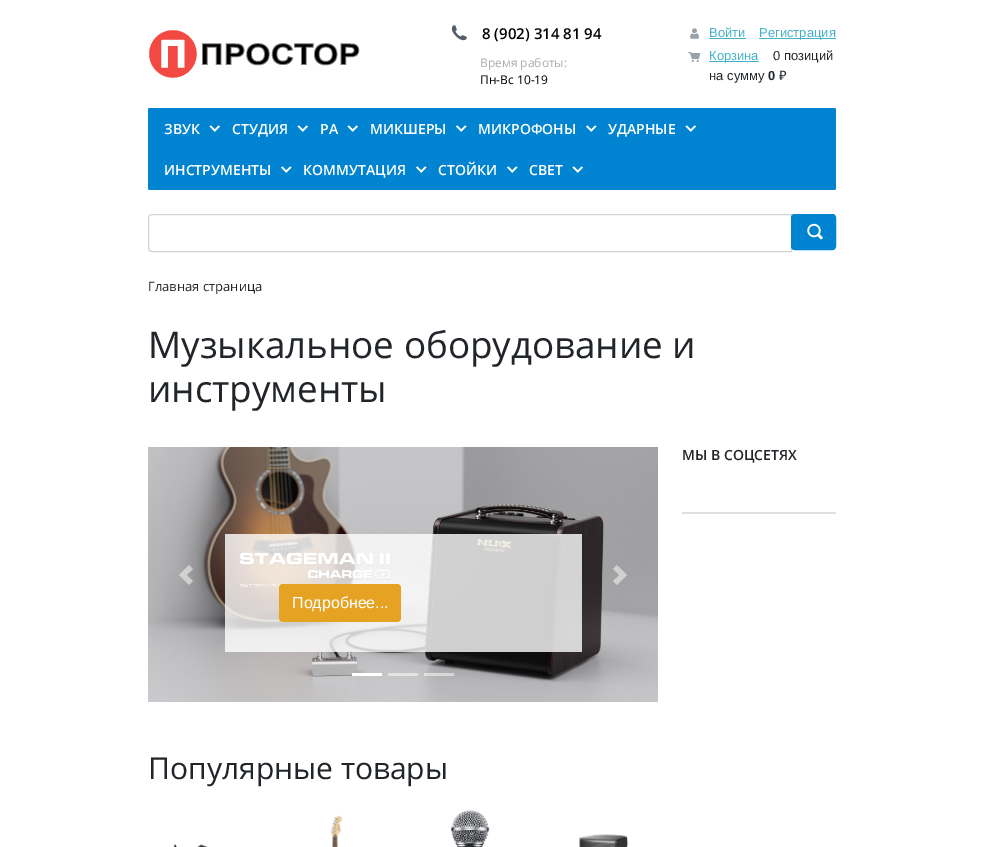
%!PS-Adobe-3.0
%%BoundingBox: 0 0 984 847
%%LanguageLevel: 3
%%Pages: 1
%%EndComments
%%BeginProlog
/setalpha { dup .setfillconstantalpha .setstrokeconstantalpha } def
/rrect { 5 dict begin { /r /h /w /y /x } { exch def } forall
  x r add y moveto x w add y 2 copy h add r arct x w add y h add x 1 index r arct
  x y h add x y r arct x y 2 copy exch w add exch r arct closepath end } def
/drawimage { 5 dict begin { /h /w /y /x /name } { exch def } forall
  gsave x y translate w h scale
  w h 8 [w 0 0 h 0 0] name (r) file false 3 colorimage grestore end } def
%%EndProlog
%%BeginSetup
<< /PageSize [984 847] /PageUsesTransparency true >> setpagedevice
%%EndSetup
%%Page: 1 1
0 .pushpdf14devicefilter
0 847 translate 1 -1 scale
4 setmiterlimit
1 setgray
0 0 984 847 rectfill
(images/1.raw) 149 30 211 48 drawimage
(images/2.raw) 451 25 16 16 drawimage
(images/3.raw) 690 28 9 11 drawimage
0.267 0.694 0.788 setrgbcolor
709 38 37 1 rectfill
759 38 77 1 rectfill
(images/4.raw) 688 52 13 10 drawimage
709 61 50 1 rectfill
0 0.514 0.82 setrgbcolor
148 108 688 82 2 rrect fill
1 setgray
newpath 213.5 130.5 moveto 218.5 125.5 lineto 220 126.5 lineto 215 131.5 lineto closepath fill
newpath 211 125.5 moveto 216 130.5 lineto 214.5 131.5 lineto 209.5 126.5 lineto closepath fill
newpath 301.5 130.5 moveto 306.5 125.5 lineto 308 126.5 lineto 303 131.5 lineto closepath fill
newpath 299 125.5 moveto 304 130.5 lineto 302.5 131.5 lineto 297.5 126.5 lineto closepath fill
newpath 351.5 130.5 moveto 356.5 125.5 lineto 358 126.5 lineto 353 131.5 lineto closepath fill
newpath 349 125.5 moveto 354 130.5 lineto 352.5 131.5 lineto 347.5 126.5 lineto closepath fill
newpath 460 130.5 moveto 465 125.5 lineto 466.5 126.5 lineto 461.5 131.5 lineto closepath fill
newpath 457.5 125.5 moveto 462.5 130.5 lineto 461 131.5 lineto 456 126.5 lineto closepath fill
newpath 590 130.5 moveto 595 125.5 lineto 596.5 126.5 lineto 591.5 131.5 lineto closepath fill
newpath 587.5 125.5 moveto 592.5 130.5 lineto 591 131.5 lineto 586 126.5 lineto closepath fill
newpath 689.5 130.5 moveto 694.5 125.5 lineto 696 126.5 lineto 691 131.5 lineto closepath fill
newpath 687 125.5 moveto 692 130.5 lineto 690.5 131.5 lineto 685.5 126.5 lineto closepath fill
newpath 285 171.5 moveto 290 166.5 lineto 291.5 167.5 lineto 286.5 172.5 lineto closepath fill
newpath 282.5 166.5 moveto 287.5 171.5 lineto 286 172.5 lineto 281 167.5 lineto closepath fill
newpath 420 171.5 moveto 425 166.5 lineto 426.5 167.5 lineto 421.5 172.5 lineto closepath fill
newpath 417.5 166.5 moveto 422.5 171.5 lineto 421 172.5 lineto 416 167.5 lineto closepath fill
newpath 511 171.5 moveto 516 166.5 lineto 517.5 167.5 lineto 512.5 172.5 lineto closepath fill
newpath 508.5 166.5 moveto 513.5 171.5 lineto 512 172.5 lineto 507 167.5 lineto closepath fill
newpath 576.5 171.5 moveto 581.5 166.5 lineto 583 167.5 lineto 578 172.5 lineto closepath fill
newpath 574 166.5 moveto 579 171.5 lineto 577.5 172.5 lineto 572.5 167.5 lineto closepath fill
0.808 0.831 0.855 setrgbcolor
newpath 152 214.5 moveto 791.5 214.5 lineto 791.5 251.5 lineto 152 251.5 lineto 150 251.5 148.5 250 148.5 248 curveto 148.5 218 lineto 148.5 216 150 214.5 152 214.5 curveto closepath stroke
0 0.514 0.82 setrgbcolor
791 214 45 36 4 rrect fill
(images/5.raw) 807 223 16 17 drawimage
791.5 214.5 44 35 3.5 rrect stroke
0.875 setgray
682 512 154 2 1 rrect fill
(images/6.raw) 148 447 510 255 drawimage
0.5 setalpha
1 setgray
newpath 189 565 moveto 179 575 lineto 189 585 lineto 193 581 lineto 186.5 575 lineto 193 569 lineto closepath fill
newpath 617 565 moveto 613 569 lineto 619.5 575 lineto 613 581 lineto 617 585 lineto 627 575 lineto closepath fill
0.8 setalpha
225 534 357 118 rectfill
1 setalpha
0.902 0.639 0.137 setrgbcolor
279 584 122 38 4 rrect fill
1 setgray
352 673 30 3 rectfill
0.5 setalpha
388 673 30 3 rectfill
424 673 30 3 rectfill
1 setalpha
(images/7.raw) 173 844 35 3 drawimage
(images/8.raw) 330 815 13 32 drawimage
(images/9.raw) 450 810 40 37 drawimage
(images/10.raw) 579 834 50 13 drawimage
/OpenSans-SemiBold [15 0 0 -15 0 0] selectfont
0 setgray
482 39 moveto (8 \(902\) 314 81 94) show
/OpenSans-Regular [12 0 0 -12 0 0] selectfont
0.678 setgray
480 67 moveto (Время работы:) show
0 setgray
480 84 moveto (Пн-Вс 10-19) show
/LiberationSans-Regular [13 0 0 -13 0 0] selectfont
0.267 0.694 0.788 setrgbcolor
709 37 moveto (Войти) show
759 37 moveto (Регистрация) show
709 60 moveto (Корзина) show
0.129 0.145 0.161 setrgbcolor
773 60 moveto (0 позиций) show
709 80 moveto (на сумму) show
/LiberationSans-Bold [13 0 0 -13 0 0] selectfont
768 80 moveto (0) show
/NotoSans-Regular [13 0 0 -13 0 0] selectfont
779 80 moveto (₽) show
/OpenSans-SemiBold [14 0 0 -14 0 0] selectfont
1 setgray
164 134 moveto (ЗВУК) show
232 134 moveto (СТУДИЯ) show
320 134 moveto (PA) show
370 134 moveto (МИКШЕРЫ) show
478 134 moveto (МИКРОФОНЫ) show
608 134 moveto (УДАРНЫЕ) show
164 175 moveto (ИНСТРУМЕНТЫ) show
303 175 moveto (КОММУТАЦИЯ) show
438 175 moveto (СТОЙКИ) show
529 175 moveto (СВЕТ) show
/OpenSans-Regular [13 0 0 -13 0 0] selectfont
0.129 0.145 0.161 setrgbcolor
148 291 moveto (Главная страница) show
/OpenSans-Regular [36.75 0 0 -36.75 0 0] selectfont
148 358 moveto (Музыкальное оборудование и) show
148 402 moveto (инструменты) show
/OpenSans-SemiBold [14 0 0 -14 0 0] selectfont
682 460 moveto (МЫ В СОЦСЕТЯХ) show
/LiberationSans-Regular [16 0 0 -16 0 0] selectfont
1 setgray
292 608 moveto (Подробнее...) show
/OpenSans-Regular [30 0 0 -30 0 0] selectfont
0.129 0.145 0.161 setrgbcolor
148 779 moveto (Популярные товары) show
.poppdf14devicefilter showpage
%%EOF
